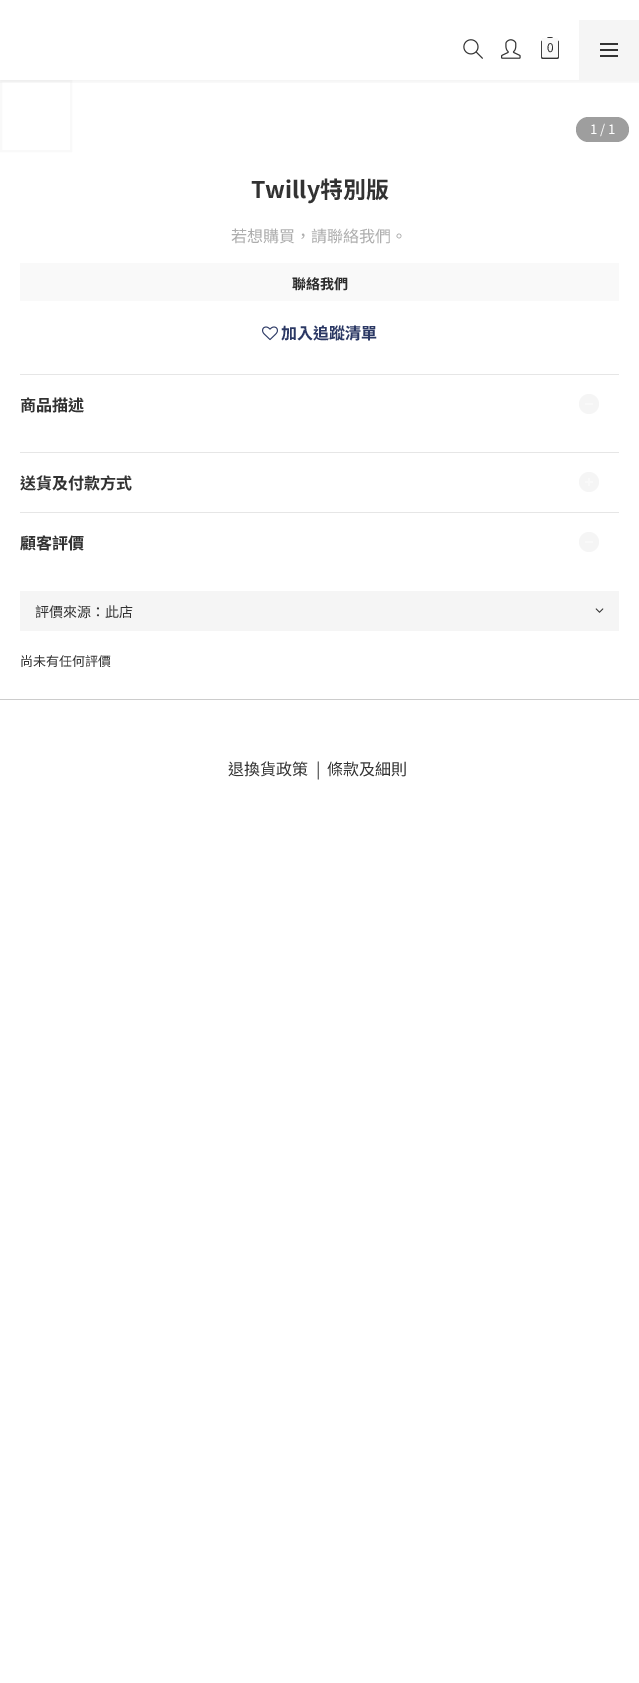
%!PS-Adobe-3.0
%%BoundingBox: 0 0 639 1683
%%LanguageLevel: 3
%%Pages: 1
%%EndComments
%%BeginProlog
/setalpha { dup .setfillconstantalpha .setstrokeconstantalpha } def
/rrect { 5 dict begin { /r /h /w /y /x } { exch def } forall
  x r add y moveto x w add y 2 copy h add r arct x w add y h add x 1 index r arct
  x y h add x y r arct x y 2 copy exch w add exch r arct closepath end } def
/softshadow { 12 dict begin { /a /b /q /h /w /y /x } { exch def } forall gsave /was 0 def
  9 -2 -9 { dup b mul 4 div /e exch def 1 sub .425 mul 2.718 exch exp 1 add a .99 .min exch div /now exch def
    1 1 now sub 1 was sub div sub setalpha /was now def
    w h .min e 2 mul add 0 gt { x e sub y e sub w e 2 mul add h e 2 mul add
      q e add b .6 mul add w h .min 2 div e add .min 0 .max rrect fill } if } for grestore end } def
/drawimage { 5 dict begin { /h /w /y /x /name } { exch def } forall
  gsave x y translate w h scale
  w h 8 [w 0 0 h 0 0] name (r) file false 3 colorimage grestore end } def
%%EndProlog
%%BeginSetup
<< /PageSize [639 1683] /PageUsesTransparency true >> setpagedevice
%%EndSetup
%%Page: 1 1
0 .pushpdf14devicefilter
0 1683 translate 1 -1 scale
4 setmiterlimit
1 setgray
0 0 639 1683 rectfill
0.976 setgray
2 setlinewidth
1 81 70 70 rectstroke
gsave
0 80 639 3 rectclip
0 setgray
0 22 639 60 0 3 0.06 softshadow
grestore
(images/1.raw) 463 39 20 20 drawimage
(images/2.raw) 501 39 20 20 drawimage
(images/3.raw) 541 37 18 22 drawimage
542 38 16 19 rectfill
0.961 setgray
579 20 60 60 rectfill
0.2 setgray
600 49 18 2 rectfill
600 43 18 2 rectfill
600 55 18 2 rectfill
0.62 setgray
576 117 53 25 12.5 rrect fill
0.976 setgray
20 263 599 38 rectfill
(images/4.raw) 262 326 16 15 drawimage
0.902 setgray
20 374 599 1 rectfill
0.961 setgray
newpath 589 404 10 0 360 arc closepath fill
0.976 setgray
585 403 8 2 rectfill
0.902 setgray
20 452 599 1 rectfill
0.961 setgray
newpath 589 482 10 0 360 arc closepath fill
0.976 setgray
585 481 8 2 rectfill
588 478 2 8 rectfill
0.902 setgray
20 512 599 1 rectfill
0.961 setgray
newpath 589 542 10 0 360 arc closepath fill
0.976 setgray
585 541 8 2 rectfill
0.961 setgray
20 591 599 40 rectfill
(images/5.raw) 595 608 9 5 drawimage
0.8 setgray
0 699 639 1 rectfill
/NotoSansTC-Regular [12 0 0 -12 0 0] selectfont
0.173 setgray
547 52 moveto (0) show
/NotoSansTC-Regular [13 0 0 -13 0 0] selectfont
1 setgray
590 134 moveto (1 / 1) show
/NotoSansTC-Bold [23 0 0 -23 0 0] selectfont
0.196 setgray
251 198 moveto (Twilly特別版) show
/NotoSansTC-Regular [16 0 0 -16 0 0] selectfont
0.678 setgray
231 242 moveto (若想購買，請聯絡我們。) show
/NotoSansTC-Bold [14 0 0 -14 0 0] selectfont
0.173 setgray
292 289 moveto (聯絡我們) show
/NotoSansTC-Bold [16 0 0 -16 0 0] selectfont
0.169 0.22 0.392 setrgbcolor
281 339 moveto (加入追蹤清單) show
0.196 setgray
20 411 moveto (商品描述) show
20 489 moveto (送貨及付款方式) show
20 549 moveto (顧客評價) show
/NotoSansTC-Regular [14 0 0 -14 0 0] selectfont
35 617 moveto (評價來源：此店) show
/NotoSansTC-Regular [13 0 0 -13 0 0] selectfont
20 666 moveto (尚未有任何評價) show
/NotoSansTC-Regular [16 0 0 -16 0 0] selectfont
228 775 moveto (退換貨政策) show
316 775 moveto (|) show
327 775 moveto (條款及細則) show
.poppdf14devicefilter showpage
%%EOF
